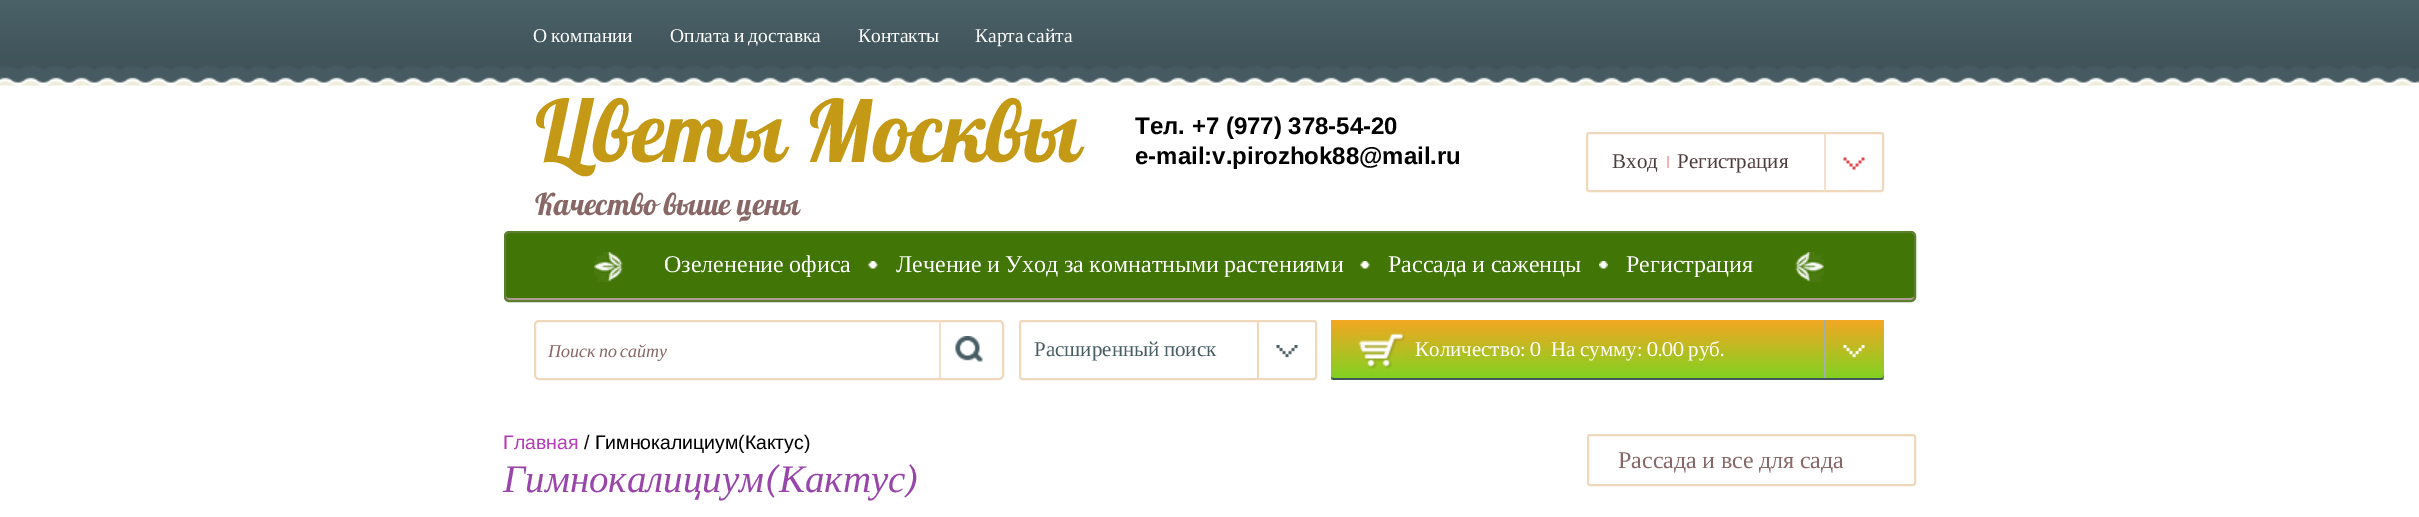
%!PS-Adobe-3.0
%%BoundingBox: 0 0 2419 517
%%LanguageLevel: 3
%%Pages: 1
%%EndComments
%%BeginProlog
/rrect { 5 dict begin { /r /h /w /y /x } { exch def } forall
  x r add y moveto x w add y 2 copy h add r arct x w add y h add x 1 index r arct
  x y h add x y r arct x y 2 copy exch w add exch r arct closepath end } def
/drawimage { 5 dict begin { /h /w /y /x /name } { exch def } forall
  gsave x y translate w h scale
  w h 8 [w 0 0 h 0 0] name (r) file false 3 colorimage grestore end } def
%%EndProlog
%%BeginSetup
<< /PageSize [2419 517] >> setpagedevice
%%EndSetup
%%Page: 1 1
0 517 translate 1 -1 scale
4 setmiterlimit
1 setgray
0 0 2419 517 rectfill
(images/1.raw) 0 0 2419 86 drawimage
0.941 0.847 0.741 setrgbcolor
2 setlinewidth
1587 133 296 58 2 rrect stroke
0.973 0.698 0.718 setrgbcolor
1667 156 2 12 rectfill
(images/2.raw) 1843 157 22 13 drawimage
0.961 0.878 0.788 setrgbcolor
1824 134 2 57 rectfill
0.255 0.459 0.02 setrgbcolor
506 233 1408 67 3 rrect fill
0.702 0.608 0.58 setrgbcolor
newpath 506 296 moveto 506 297 lineto 506 299 507 300 509 300 curveto 1911 300 lineto 1913 300 1914 299 1914 297 curveto 1914 296 lineto 1914 297 1913 298 1911 298 curveto 508 298 lineto 507 298 506 297 506 296 curveto closepath fill
0.357 0.498 0.184 setrgbcolor
505 232 1410 69 4 rrect stroke
(images/3.raw) 594 252 29 30 drawimage
(images/4.raw) 868 261 10 8 drawimage
(images/5.raw) 1360 261 10 8 drawimage
(images/6.raw) 1599 261 9 8 drawimage
(images/7.raw) 1795 252 29 30 drawimage
0.941 0.847 0.741 setrgbcolor
535 321 468 58 4 rrect stroke
(images/8.raw) 955 336 28 26 drawimage
0.961 0.878 0.788 setrgbcolor
939 321 2 57 rectfill
0.941 0.847 0.741 setrgbcolor
1020 321 296 58 2 rrect stroke
(images/9.raw) 1276 345 22 13 drawimage
1257 321 2 57 rectfill
gsave 1331 320 553 60 3 rrect clip newpath
<< /ShadingType 2 /ColorSpace /DeviceRGB /Coords [1607 319 1607 380] /Extend [true true] /Function << /FunctionType 2 /Domain [0 1] /C0 [0.961 0.651 0.137] /C1 [0.494 0.827 0.129] /N 1 >> >> shfill grestore
0.255 0.337 0.361 setrgbcolor
newpath 1331 377 moveto 1331 378 1332 379 1333 380 curveto 1881 380 lineto 1883 379 lineto 1884 375 lineto 1884 377 1883 378 1881 378 curveto 1334 378 lineto 1333 378 1332 378 1331 377 curveto closepath fill
(images/10.raw) 1358 333 47 36 drawimage
(images/11.raw) 1843 345 22 13 drawimage
0.639 0.682 0.694 setrgbcolor
1824 320 2 58 rectfill
0.941 0.847 0.741 setrgbcolor
1588 435 327 50 2 rrect stroke
/LiberationSerif-Regular [19.5 0 0 -19.5 0 0] selectfont
1 setgray
533 42 moveto -1 0 32 (О компании) widthshow
670 42 moveto -1 0 32 (Оплата и доставка) widthshow
858 42 moveto (Контакты) show
975 42 moveto -1 0 32 (Карта сайта) widthshow
/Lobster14-Regular [85.5 0 0 -85.5 0 0] selectfont
0.769 0.6 0.082 setrgbcolor
535 162 moveto (Цветы Москвы) show
/Lobster14-Regular [30 0 0 -30 0 0] selectfont
0.533 0.404 0.4 setrgbcolor
535 215 moveto (Качество выше цены) show
/LiberationSans-Bold [24 0 0 -24 0 0] selectfont
0 setgray
1135 134 moveto (Тел. +7 \(977\) 378-54-20) show
1135 164 moveto (e-mail:v.pirozhok88@mail.ru) show
/LiberationSerif-Regular [21 0 0 -21 0 0] selectfont
0.302 0.239 0.243 setrgbcolor
1612 168 moveto (Вход) show
1677 168 moveto (Регистрация) show
/LiberationSerif-Regular [24 0 0 -24 0 0] selectfont
1 setgray
664 272 moveto -0.5 0 32 (Озеленение офиса) widthshow
896 272 moveto -0.75 0 32 (Лечение и Уход за комнатными растениями) widthshow
1388 272 moveto -0.5 0 32 (Рассада и саженцы) widthshow
1626 272 moveto (Регистрация) show
/LiberationSerif-Italic [18 0 0 -18 0 0] selectfont
0.533 0.404 0.4 setrgbcolor
548 357 moveto -1 0 32 (Поиск по сайту) widthshow
/LiberationSerif-Regular [21 0 0 -21 0 0] selectfont
0.275 0.365 0.388 setrgbcolor
1034 356 moveto -1 0 32 (Расширенный поиск) widthshow
1 setgray
1415 356 moveto (Количество) show
/Caladea-Regular [21 0 0 -21 0 0] selectfont
1520 356 moveto (: 0) show
/LiberationSerif-Regular [21 0 0 -21 0 0] selectfont
1551 356 moveto (На) show
1580 356 moveto (сумму) show
/Caladea-Regular [21 0 0 -21 0 0] selectfont
1637 356 moveto (: 0.00) show
/LiberationSerif-Regular [21 0 0 -21 0 0] selectfont
1688 356 moveto (руб) show
/Caladea-Regular [21 0 0 -21 0 0] selectfont
1720 356 moveto (.) show
/LiberationSans-Regular [19.5 0 0 -19.5 0 0] selectfont
0.71 0.239 0.71 setrgbcolor
503 449 moveto (Главная) show
0 setgray
584 449 moveto (/ Гимнокалициум\(Кактус\)) show
/LiberationSerif-Italic [39 0 0 -39 0 0] selectfont
0.596 0.275 0.667 setrgbcolor
503 492 moveto (Гимнокалициум) show
/Caladea-Italic [39 0 0 -39 0 0] selectfont
764 492 moveto (\() show
/LiberationSerif-Italic [39 0 0 -39 0 0] selectfont
779 492 moveto (Кактус) show
/Caladea-Italic [39 0 0 -39 0 0] selectfont
905 492 moveto (\)) show
/LiberationSerif-Regular [24 0 0 -24 0 0] selectfont
0.533 0.404 0.4 setrgbcolor
1618 468 moveto -0.5 0 32 (Рассада и все для сада) widthshow
showpage
%%EOF
